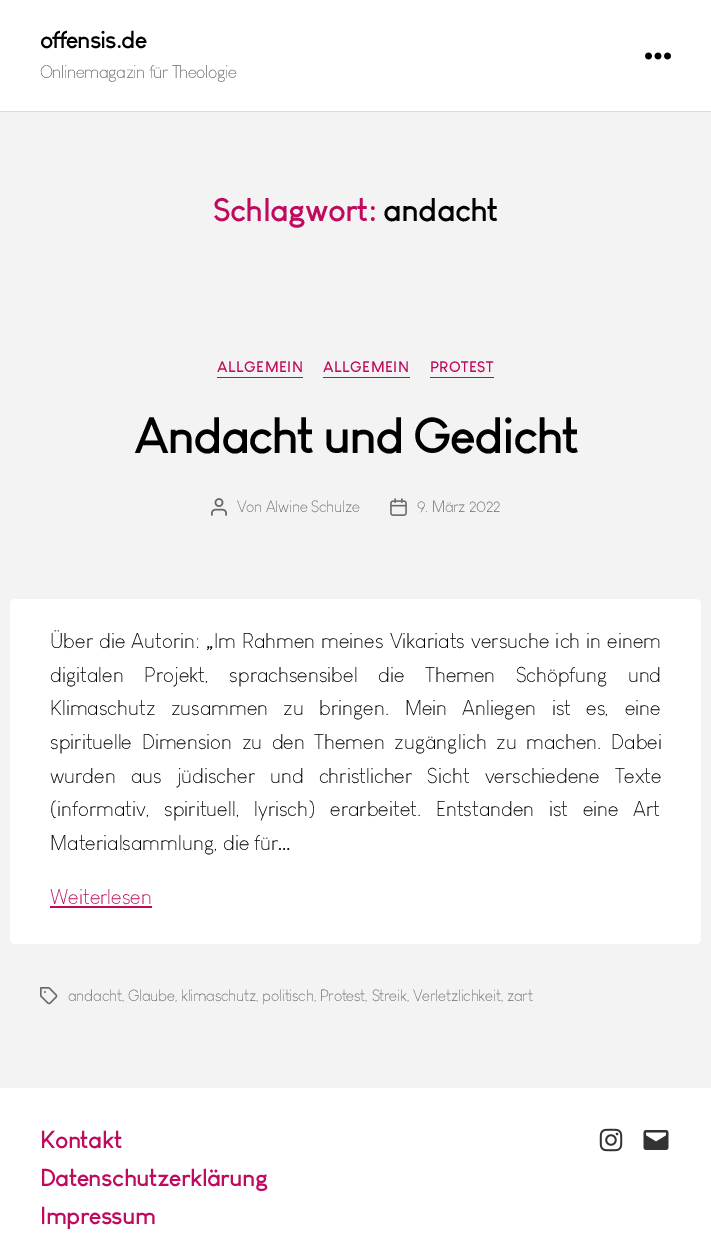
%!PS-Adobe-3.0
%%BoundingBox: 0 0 711 1241
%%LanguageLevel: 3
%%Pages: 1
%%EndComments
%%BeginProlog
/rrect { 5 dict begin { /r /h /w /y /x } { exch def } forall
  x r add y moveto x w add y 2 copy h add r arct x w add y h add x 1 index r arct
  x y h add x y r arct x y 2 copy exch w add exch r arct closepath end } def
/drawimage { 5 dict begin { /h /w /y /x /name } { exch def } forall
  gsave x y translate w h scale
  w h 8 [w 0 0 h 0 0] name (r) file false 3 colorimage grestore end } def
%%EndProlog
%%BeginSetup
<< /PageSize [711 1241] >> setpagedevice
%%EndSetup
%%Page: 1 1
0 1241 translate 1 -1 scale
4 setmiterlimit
0.953 setgray
0 0 711 1241 rectfill
1 setgray
0 0 711 111 rectfill
0.859 setgray
0 111 711 1 rectfill
(images/1.raw) 645 52 26 8 drawimage
0.753 0.039 0.369 setrgbcolor
217 377 86 1 rectfill
323 377 87 1 rectfill
430 377 64 1 rectfill
(images/2.raw) 211 498 16 18 drawimage
(images/3.raw) 390 498 17 18 drawimage
1 setgray
10 599 691 345 5 rrect fill
0.753 0.039 0.369 setrgbcolor
50 906 102 2 rectfill
(images/4.raw) 40 987 18 18 drawimage
1 setgray
0 1088 711 153 rectfill
(images/5.raw) 599 1128 24 24 drawimage
(images/6.raw) 643 1130 26 20 drawimage
/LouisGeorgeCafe-Bold [24 0 0 -24 0 0] selectfont
0 setgray
40 48 moveto -1 0 (offensis.de) ashow
/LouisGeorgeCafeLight-Light [18 0 0 -18 0 0] selectfont
0.408 setgray
40 78 moveto -0.55 0 (Onlinemagazin für Theologie) ashow
/LouisGeorgeCafe-Bold [32 0 0 -32 0 0] selectfont
0.753 0.039 0.369 setrgbcolor
213 221 moveto -0.8 0 (Schlagwort:) ashow
0 setgray
383 221 moveto -0.8 0 (andacht) ashow
/LouisGeorgeCafe-Bold [15 0 0 -15 0 0] selectfont
0.753 0.039 0.369 setrgbcolor
217 372 moveto 0.5 0 (ALLGEMEIN) ashow
323 372 moveto 0.5 0 (ALLGEMEIN) ashow
430 372 moveto 0.5 0 (PROTEST) ashow
/LouisGeorgeCafe-Bold [50 0 0 -50 0 0] selectfont
0 setgray
134 453 moveto -2.1 0 (Andacht und Gedicht) ashow
/LouisGeorgeCafeLight-Light [16 0 0 -16 0 0] selectfont
0.408 setgray
237 512 moveto -0.27 0 (Von Alwine Schulze) ashow
417 512 moveto -0.27 0 (9. März 2022) ashow
/LouisGeorgeCafeLight-Light [21 0 0 -21 0 0] selectfont
0 setgray
50 648 moveto 1 0 32 (Über die Autorin:) widthshow
/LouisGeorgeCafe-Regular [21 0 0 -21 0 0] selectfont
206 648 moveto („) show
/LouisGeorgeCafeLight-Light [21 0 0 -21 0 0] selectfont
214 648 moveto 1 0 32 (Im Rahmen meines Vikariats versuche ich in einem) widthshow
50 682 moveto 15.5 0 32 (digitalen Projekt, sprachsensibel die Themen Schöpfung und) widthshow
50 715 moveto 10.25 0 32 (Klimaschutz zusammen zu bringen. Mein Anliegen ist es, eine) widthshow
50 749 moveto 4.5 0 32 (spirituelle Dimension zu den Themen zugänglich zu machen. Dabei) widthshow
50 783 moveto 10 0 32 (wurden aus jüdischer und christlicher Sicht verschiedene Texte) widthshow
50 816 moveto 9.5 0 32 (\(informativ, spirituell, lyrisch\) erarbeitet. Entstanden ist eine Art) widthshow
50 850 moveto (Materialsammlung, die für) show
/LouisGeorgeCafe-Regular [21 0 0 -21 0 0] selectfont
278 850 moveto (…) show
/LouisGeorgeCafeLight-Light [21 0 0 -21 0 0] selectfont
0.753 0.039 0.369 setrgbcolor
50 904 moveto (Weiterlesen) show
/LouisGeorgeCafeLight-Light [16 0 0 -16 0 0] selectfont
0.408 setgray
68 1001 moveto -0.27 0 (andacht, Glaube, klimaschutz, politisch, Protest, Streik, Verletzlichkeit, zart) ashow
/LouisGeorgeCafe-Bold [24 0 0 -24 0 0] selectfont
0.753 0.039 0.369 setrgbcolor
40 1148 moveto -0.7 0 (Kontakt) ashow
40 1186 moveto -0.7 0 (Datenschutzerklärung) ashow
40 1224 moveto -0.7 0 (Impressum) ashow
showpage
%%EOF
